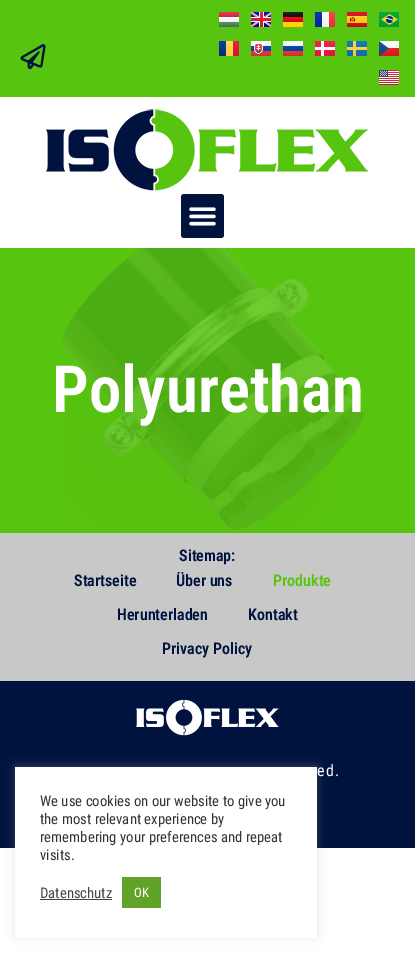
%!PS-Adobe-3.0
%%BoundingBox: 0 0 415 953
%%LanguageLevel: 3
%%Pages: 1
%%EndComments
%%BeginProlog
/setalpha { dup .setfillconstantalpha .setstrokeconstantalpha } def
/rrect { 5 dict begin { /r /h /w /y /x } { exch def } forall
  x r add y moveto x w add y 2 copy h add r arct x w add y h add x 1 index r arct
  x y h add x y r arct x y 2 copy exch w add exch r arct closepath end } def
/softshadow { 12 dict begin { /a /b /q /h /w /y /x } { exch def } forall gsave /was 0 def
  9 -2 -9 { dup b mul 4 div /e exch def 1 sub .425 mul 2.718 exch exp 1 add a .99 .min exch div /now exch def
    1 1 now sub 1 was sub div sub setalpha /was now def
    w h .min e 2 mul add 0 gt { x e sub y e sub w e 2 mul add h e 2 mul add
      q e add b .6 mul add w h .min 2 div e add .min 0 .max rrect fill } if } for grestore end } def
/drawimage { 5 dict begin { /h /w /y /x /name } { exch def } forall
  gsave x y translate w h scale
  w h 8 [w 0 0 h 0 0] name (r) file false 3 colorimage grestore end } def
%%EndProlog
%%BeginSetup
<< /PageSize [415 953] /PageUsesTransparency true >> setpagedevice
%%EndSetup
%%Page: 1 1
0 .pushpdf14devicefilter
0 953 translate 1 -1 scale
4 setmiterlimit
1 setgray
0 0 415 953 rectfill
0.341 0.769 0.059 setrgbcolor
0 0 415 97 rectfill
(images/1.raw) 20 44 26 26 drawimage
gsave newpath 219 12 moveto 239 12 lineto 239 17 lineto 219 17 lineto closepath clip newpath
<< /ShadingType 2 /ColorSpace /DeviceRGB /Coords [230 12 230 17] /Extend [true true] /Function << /FunctionType 2 /Domain [0 1] /C0 [0.878 0.239 0.322] /C1 [0.804 0.165 0.247] /N 1 >> >> shfill grestore
gsave newpath 219 17 moveto 239 17 lineto 239 22 lineto 219 22 lineto closepath clip newpath
<< /ShadingType 2 /ColorSpace /DeviceRGB /Coords [230 17 230 22] /Extend [true true] /Function << /FunctionType 2 /Domain [0 1] /C0 [1 1 1] /C1 [0.941 0.941 0.941] /N 1 >> >> shfill grestore
gsave newpath 219 22 moveto 239 22 lineto 239 27 lineto 219 27 lineto closepath clip newpath
<< /ShadingType 2 /ColorSpace /DeviceRGB /Coords [230 22 230 27] /Extend [true true] /Function << /FunctionType 2 /Domain [0 1] /C0 [0.353 0.569 0.396] /C1 [0.267 0.439 0.302] /N 1 >> >> shfill grestore
(images/2.raw) 251 12 20 15 drawimage
gsave newpath 283 12 moveto 303 12 lineto 303 17 lineto 283 17 lineto closepath clip newpath
<< /ShadingType 2 /ColorSpace /DeviceRGB /Coords [294 12 294 17] /Extend [true true] /Function << /FunctionType 2 /Domain [0 1] /C0 [0.149 0.149 0.149] /C1 [0.051 0.051 0.051] /N 1 >> >> shfill grestore
gsave newpath 283 17 moveto 303 17 lineto 303 22 lineto 283 22 lineto closepath clip newpath
<< /ShadingType 2 /ColorSpace /DeviceRGB /Coords [294 17 294 22] /Extend [true true] /Function << /FunctionType 2 /Domain [0 1] /C0 [0.941 0.082 0.082] /C1 [0.871 0 0] /N 1 >> >> shfill grestore
gsave newpath 283 22 moveto 303 22 lineto 303 27 lineto 283 27 lineto closepath clip newpath
<< /ShadingType 2 /ColorSpace /DeviceRGB /Coords [294 22 294 27] /Extend [true true] /Function << /FunctionType 2 /Domain [0 1] /C0 [1 0.835 0.129] /C1 [1 0.812 0] /N 1 >> >> shfill grestore
gsave newpath 315 12 moveto 322 12 lineto 322 27 lineto 315 27 lineto closepath clip newpath
<< /ShadingType 2 /ColorSpace /DeviceRGB /Coords [319 12 319 27] /Extend [true true] /Function << /FunctionType 2 /Domain [0 1] /C0 [0.063 0.208 0.733] /C1 [0.016 0.137 0.588] /N 1 >> >> shfill grestore
gsave newpath 322 12 moveto 329 12 lineto 329 27 lineto 322 27 lineto closepath clip newpath
<< /ShadingType 2 /ColorSpace /DeviceRGB /Coords [326 12 326 27] /Extend [true true] /Function << /FunctionType 2 /Domain [0 1] /C0 [1 1 1] /C1 [0.941 0.941 0.941] /N 1 >> >> shfill grestore
gsave newpath 329 12 moveto 335 12 lineto 335 27 lineto 329 27 lineto closepath clip newpath
<< /ShadingType 2 /ColorSpace /DeviceRGB /Coords [331 12 331 27] /Extend [true true] /Function << /FunctionType 2 /Domain [0 1] /C0 [0.957 0.275 0.325] /C1 [0.933 0.165 0.224] /N 1 >> >> shfill grestore
(images/3.raw) 347 12 20 15 drawimage
(images/4.raw) 379 12 20 15 drawimage
gsave newpath 219 41 moveto 226 41 lineto 226 56 lineto 219 56 lineto closepath clip newpath
<< /ShadingType 2 /ColorSpace /DeviceRGB /Coords [223 41 223 56] /Extend [true true] /Function << /FunctionType 2 /Domain [0 1] /C0 [0.039 0.239 0.612] /C1 [0.016 0.18 0.49] /N 1 >> >> shfill grestore
gsave newpath 226 41 moveto 233 41 lineto 233 56 lineto 226 56 lineto closepath clip newpath
<< /ShadingType 2 /ColorSpace /DeviceRGB /Coords [230 41 230 56] /Extend [true true] /Function << /FunctionType 2 /Domain [0 1] /C0 [1 0.851 0.333] /C1 [0.988 0.816 0.212] /N 1 >> >> shfill grestore
gsave newpath 233 41 moveto 239 41 lineto 239 56 lineto 233 56 lineto closepath clip newpath
<< /ShadingType 2 /ColorSpace /DeviceRGB /Coords [235 41 235 56] /Extend [true true] /Function << /FunctionType 2 /Domain [0 1] /C0 [0.898 0.145 0.239] /C1 [0.8 0.086 0.173] /N 1 >> >> shfill grestore
(images/5.raw) 251 41 20 15 drawimage
gsave newpath 283 41 moveto 303 41 lineto 303 46 lineto 283 46 lineto closepath clip newpath
<< /ShadingType 2 /ColorSpace /DeviceRGB /Coords [294 41 294 46] /Extend [true true] /Function << /FunctionType 2 /Domain [0 1] /C0 [1 1 1] /C1 [0.941 0.941 0.941] /N 1 >> >> shfill grestore
gsave newpath 283 46 moveto 303 46 lineto 303 51 lineto 283 51 lineto closepath clip newpath
<< /ShadingType 2 /ColorSpace /DeviceRGB /Coords [294 46 294 51] /Extend [true true] /Function << /FunctionType 2 /Domain [0 1] /C0 [0.047 0.278 0.718] /C1 [0.027 0.239 0.643] /N 1 >> >> shfill grestore
gsave newpath 283 51 moveto 303 51 lineto 303 56 lineto 283 56 lineto closepath clip newpath
<< /ShadingType 2 /ColorSpace /DeviceRGB /Coords [294 51 294 56] /Extend [true true] /Function << /FunctionType 2 /Domain [0 1] /C0 [0.898 0.231 0.208] /C1 [0.827 0.18 0.157] /N 1 >> >> shfill grestore
(images/6.raw) 315 41 20 15 drawimage
(images/7.raw) 347 41 20 15 drawimage
(images/8.raw) 379 41 20 15 drawimage
(images/9.raw) 379 70 20 15 drawimage
(images/10.raw) 46 109 323 82 drawimage
0 0.071 0.243 setrgbcolor
181 194 43 44 3 rrect fill
(images/11.raw) 189 207 27 19 drawimage
0.341 0.769 0.059 setrgbcolor
0 248 415 285 rectfill
(images/12.raw) 62 248 303 282 drawimage
0.784 setgray
0 533 415 148 rectfill
0 0.071 0.243 setrgbcolor
0 681 415 167 rectfill
(images/13.raw) 136 699 143 37 drawimage
0.675 0.671 0.671 setrgbcolor
15 766 302 171 0 5 0.3 softshadow
1 setgray
15 767 302 171 rectfill
0.267 setgray
40 899 72 1 rectfill
0.38 0.635 0.161 setrgbcolor
122 877 39 31 rectfill
/RobotoCondensed-SemiBold [65 0 0 -65 0 0] selectfont
1 setgray
52 412 moveto (Polyurethan) show
/RobotoCondensed-SemiBold [16 0 0 -16 0 0] selectfont
0 0.071 0.243 setrgbcolor
179 561 moveto (Sitemap:) show
74 586 moveto (Startseite) show
176 586 moveto (Über uns) show
0.341 0.769 0.059 setrgbcolor
273 586 moveto (Produkte) show
0 0.071 0.243 setrgbcolor
117 620 moveto (Herunterladen) show
248 620 moveto (Kontakt) show
162 654 moveto (Privacy Policy) show
/RobotoCondensed-Regular [16 0 0 -16 0 0] selectfont
1 setgray
317 776 moveto 1.5 0 (ed.) ashow
/RobotoCondensed-Regular [14.7 0 0 -14.7 0 0] selectfont
0.2 setgray
40 806 moveto (We use cookies on our website to give you) show
40 824 moveto (the most relevant experience by) show
40 842 moveto (remembering your preferences and repeat) show
40 860 moveto (visits.) show
0.267 setgray
40 898 moveto (Datenschutz) show
/RobotoCondensed-Regular [13 0 0 -13 0 0] selectfont
1 setgray
134 897 moveto (OK) show
.poppdf14devicefilter showpage
%%EOF
